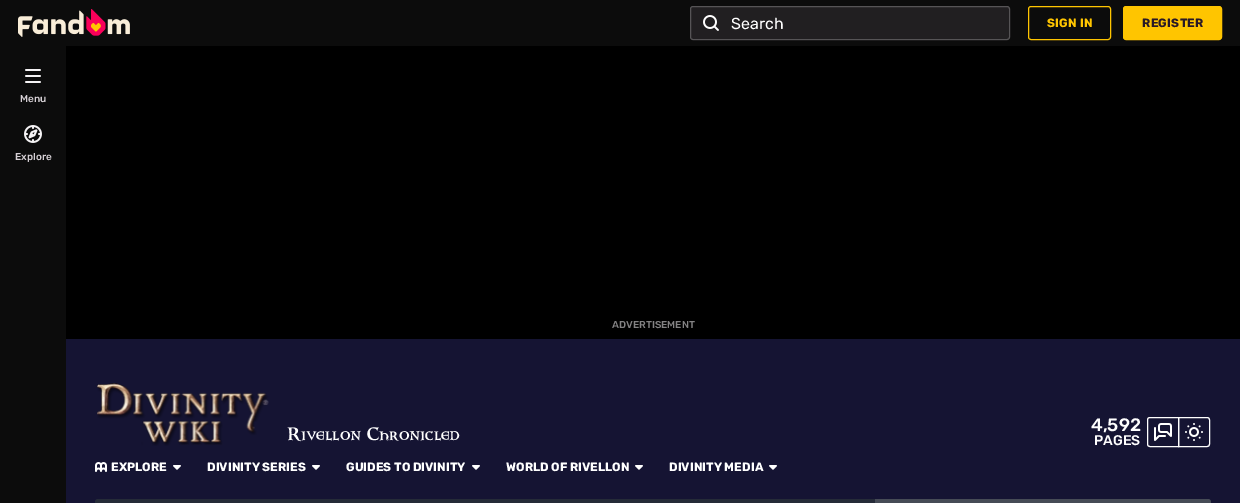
%!PS-Adobe-3.0
%%BoundingBox: 0 0 1240 503
%%LanguageLevel: 3
%%Pages: 1
%%EndComments
%%BeginProlog
/setalpha { dup .setfillconstantalpha .setstrokeconstantalpha } def
/rrect { 5 dict begin { /r /h /w /y /x } { exch def } forall
  x r add y moveto x w add y 2 copy h add r arct x w add y h add x 1 index r arct
  x y h add x y r arct x y 2 copy exch w add exch r arct closepath end } def
/drawimage { 5 dict begin { /h /w /y /x /name } { exch def } forall
  gsave x y translate w h scale
  w h 8 [w 0 0 h 0 0] name (r) file false 3 colorimage grestore end } def
%%EndProlog
%%BeginSetup
<< /PageSize [1240 503] /PageUsesTransparency true >> setpagedevice
%%EndSetup
%%Page: 1 1
0 .pushpdf14devicefilter
0 503 translate 1 -1 scale
4 setmiterlimit
0.082 0.078 0.2 setrgbcolor
0 0 1240 503 rectfill
0.047 setgray
0 0 1240 46 rectfill
(images/1.raw) 18 9 112 28 drawimage
0.129 0.122 0.129 setrgbcolor
690 6 320 34 3 rrect fill
0.25 setalpha
0.961 0.953 0.961 setrgbcolor
690.5 6.5 319 33 2.5 rrect stroke
1 setalpha
(images/2.raw) 703 15 16 16 drawimage
1 0.773 0 setrgbcolor
1028.5 6.5 82 33 2.5 rrect stroke
1123.5 6.5 98 33 2.5 rrect gsave fill grestore
stroke
0.047 setgray
0 46 66 457 rectfill
(images/3.raw) 25 69 16 14 drawimage
(images/4.raw) 24 125 18 18 drawimage
0 setgray
66 46 1174 293 rectfill
(images/5.raw) 97 383 172 63 drawimage
1 setgray
newpath 1150 417.5 moveto 1178.5 417.5 lineto 1178.5 446.5 lineto 1150 446.5 lineto 1148.5 446.5 1147.5 445.5 1147.5 444 curveto 1147.5 420 lineto 1147.5 418.5 1148.5 417.5 1150 417.5 curveto closepath stroke
(images/6.raw) 1154 423 18 18 drawimage
newpath 1178.5 417.5 moveto 1207 417.5 lineto 1208.5 417.5 1209.5 418.5 1209.5 420 curveto 1209.5 444 lineto 1209.5 445.5 1208.5 446.5 1207 446.5 curveto 1178.5 446.5 lineto closepath stroke
(images/7.raw) 1185 423 18 18 drawimage
(images/8.raw) 95 462 12 10 drawimage
(images/9.raw) 173 465 8 5 drawimage
(images/9.raw) 312 465 8 5 drawimage
(images/9.raw) 472 465 8 5 drawimage
(images/9.raw) 635 465 8 5 drawimage
(images/9.raw) 769 465 8 5 drawimage
0.145 0.169 0.22 setrgbcolor
newpath 98 499 moveto 875 499 lineto 875 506 lineto 98 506 lineto 96.5 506 95 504.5 95 503 curveto 95 502 lineto 95 500.5 96.5 499 98 499 curveto closepath fill
0.275 0.294 0.337 setrgbcolor
newpath 875 499 moveto 1208 499 lineto 1209.5 499 1211 500.5 1211 502 curveto 1211 503 lineto 1211 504.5 1209.5 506 1208 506 curveto 875 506 lineto closepath fill
/Rubik-Regular [16 0 0 -16 0 0] selectfont
1 setgray
731 29 moveto (Search) show
/Rubik-Bold [12 0 0 -12 0 0] selectfont
1 0.773 0 setrgbcolor
1047 27 moveto 0.25 0 (SIGN IN) ashow
0.161 0.098 0.153 setrgbcolor
1142 27 moveto 0.25 0 (REGISTER) ashow
/Rubik-Medium [10 0 0 -10 0 0] selectfont
0.839 0.816 0.835 setrgbcolor
20 102 moveto (Menu) show
15 160 moveto (Explore) show
0.514 0.51 0.514 setrgbcolor
612 328 moveto (ADVERTISEMENT) show
/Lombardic-Bold [18 0 0 -18 0 0] selectfont
1 setgray
287 440 moveto (Rivellon Chronicled) show
/Rubik-Medium [18 0 0 -18 0 0] selectfont
1091 431 moveto (4,592) show
/Rubik-Medium [14 0 0 -14 0 0] selectfont
1094 445 moveto (PAGES) show
/Rubik-Bold [12 0 0 -12 0 0] selectfont
111 471 moveto (EXPLORE) show
207 471 moveto (DIVINITY SERIES) show
346 471 moveto (GUIDES TO DIVINITY) show
506 471 moveto (WORLD OF RIVELLON) show
669 471 moveto (DIVINITY MEDIA) show
.poppdf14devicefilter showpage
%%EOF
